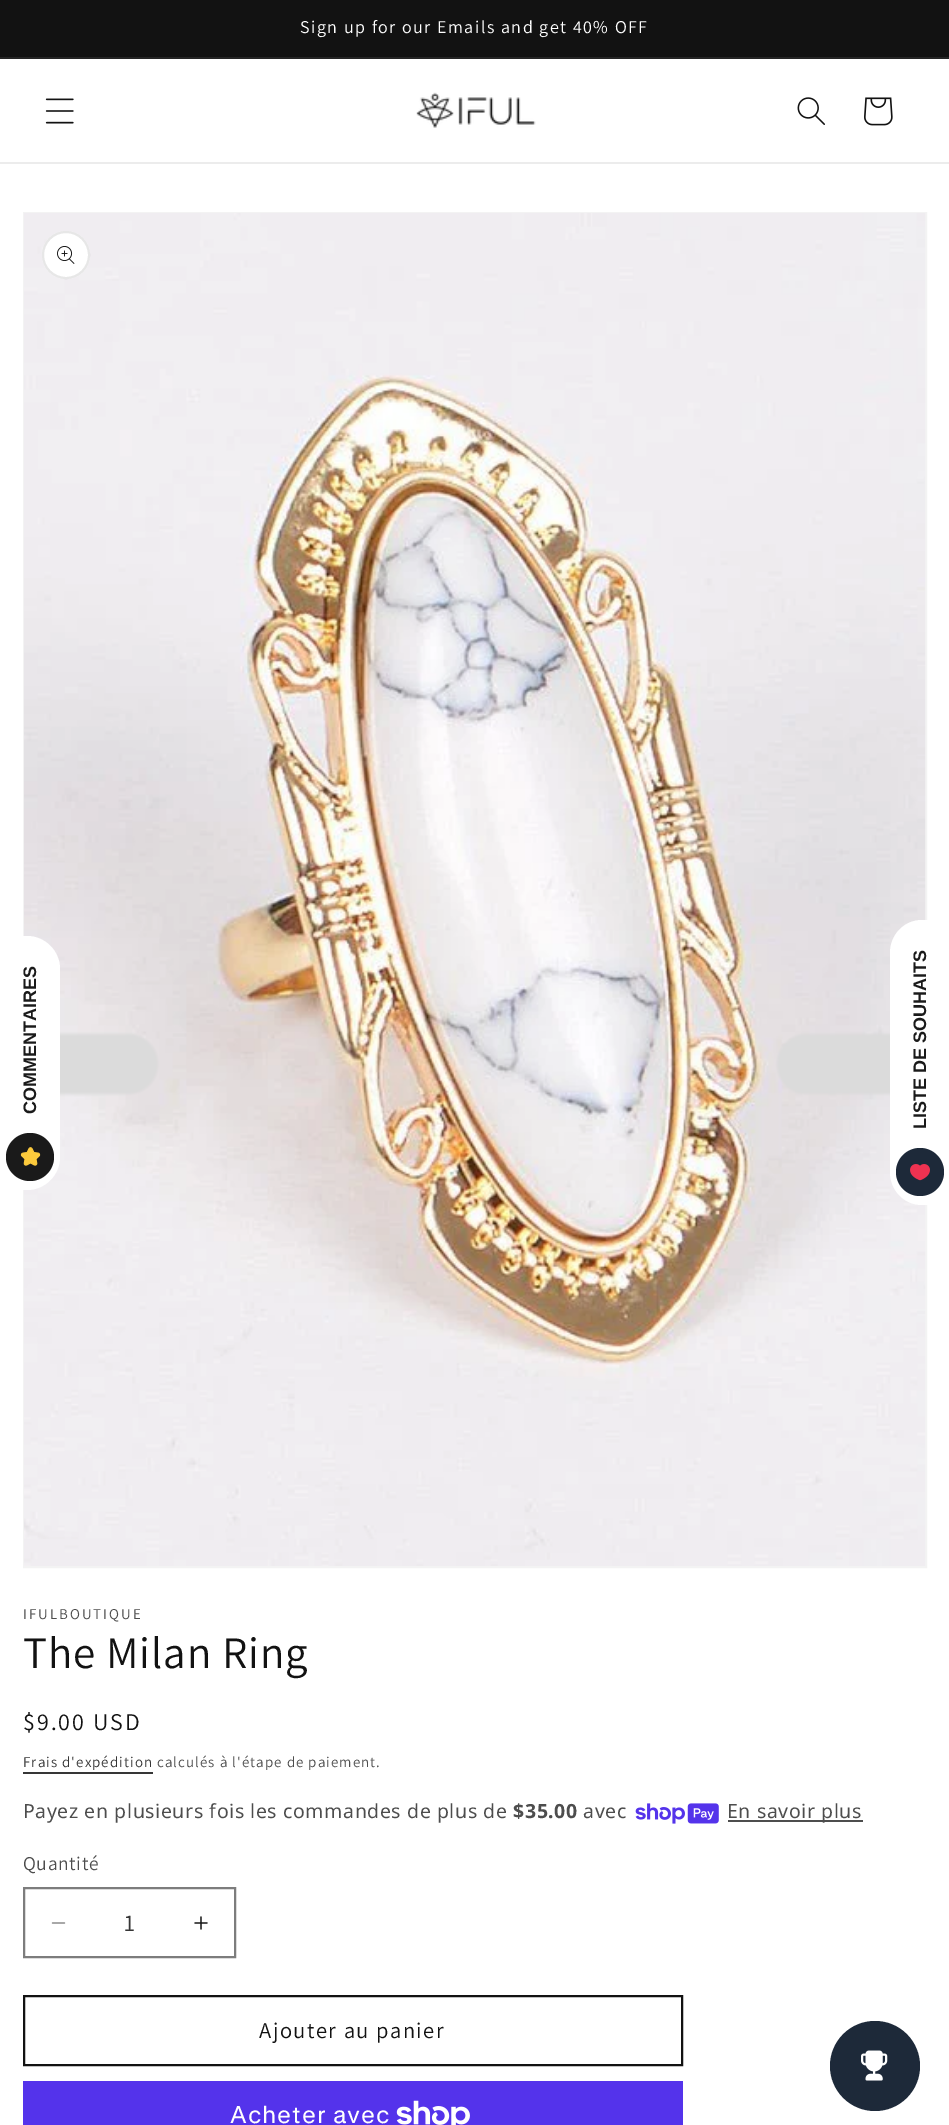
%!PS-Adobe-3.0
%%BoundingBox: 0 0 949 2125
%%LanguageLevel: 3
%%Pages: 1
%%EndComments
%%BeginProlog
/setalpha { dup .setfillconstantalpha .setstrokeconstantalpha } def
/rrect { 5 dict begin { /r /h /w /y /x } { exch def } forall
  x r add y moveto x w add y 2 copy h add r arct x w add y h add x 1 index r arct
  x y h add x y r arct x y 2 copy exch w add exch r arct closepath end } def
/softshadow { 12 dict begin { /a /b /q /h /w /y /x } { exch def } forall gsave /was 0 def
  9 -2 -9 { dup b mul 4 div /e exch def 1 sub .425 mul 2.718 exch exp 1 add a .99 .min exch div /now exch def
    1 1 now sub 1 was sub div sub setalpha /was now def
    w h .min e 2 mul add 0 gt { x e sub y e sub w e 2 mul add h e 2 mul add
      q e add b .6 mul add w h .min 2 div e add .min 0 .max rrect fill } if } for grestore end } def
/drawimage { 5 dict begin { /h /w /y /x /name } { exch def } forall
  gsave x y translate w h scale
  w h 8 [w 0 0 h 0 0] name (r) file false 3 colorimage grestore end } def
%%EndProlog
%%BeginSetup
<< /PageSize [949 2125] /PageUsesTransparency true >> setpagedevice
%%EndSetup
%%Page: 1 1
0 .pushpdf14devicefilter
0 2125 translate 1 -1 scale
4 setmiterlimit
1 setgray
0 0 949 2125 rectfill
0.071 setgray
0 0 949 57 rectfill
0.145 setgray
0 57 949 2 rectfill
0.925 setgray
0 162 949 2 rectfill
(images/1.raw) 45 98 29 26 drawimage
(images/2.raw) 416 92 120 36 drawimage
(images/3.raw) 797 97 28 28 drawimage
(images/4.raw) 864 97 29 29 drawimage
0.953 setgray
2 setlinewidth
24 213 902 1354 rectstroke
(images/8.raw) 24 213 902 1353 drawimage
0.855 setgray
-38 1034 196 60 33 1.5 1 softshadow
1 setgray
newpath 0 1190 moveto 0 936 lineto 27 936 lineto 45 936 60 951 60 969 curveto 60 1157 lineto 60 1175 45 1190 27 1190 curveto closepath fill
0.102 setgray
newpath 30 1157 24 0 360 arc closepath fill
(images/5.raw) 20 1147 21 19 drawimage
0.855 setgray
777 1034 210 60 33 1.5 1 softshadow
1 setgray
newpath 890 1172 moveto 890 953 lineto 890 935 904 920 922 920 curveto 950 920 lineto 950 1205 lineto 922 1205 lineto 904 1205 890 1190 890 1172 curveto closepath fill
0.114 0.161 0.224 setrgbcolor
newpath 920 1172 24 0 360 arc closepath fill
(images/6.raw) 910 1164 20 17 drawimage
newpath 875 2066 45 0 360 arc closepath fill
(images/7.raw) 861 2050 27 31 drawimage
1 setgray
newpath 66 255 24 0 360 arc closepath fill
0.1 setalpha
0.071 setgray
newpath 66 255 23 0 360 arc closepath stroke
1 setalpha
(images/9.raw) 57 246 18 18 drawimage
0.212 setgray
23 1772 130 2 rectfill
(images/10.raw) 635 1803 84 21 drawimage
0.302 setgray
728 1820 135 2 rectfill
(images/11.raw) 51 1922 15 2 drawimage
(images/12.raw) 194 1916 14 14 drawimage
0.49 setgray
24 1888 211 69 rectstroke
0.071 setgray
24 1996 658 69 rectstroke
0.329 0.2 0.922 setrgbcolor
23 2081 660 44 rectfill
(images/13.raw) 396 2100 74 25 drawimage
/Assistant-Regular [18 0 0 -18 0 0] selectfont
1 setgray
300 33 moveto 1.5 0 (Sign up for our Emails and get 40% OFF) ashow
/LiberationSans-Bold [18 0 0 -18 0 0] selectfont
0.102 setgray
gsave 36 1114 translate -90 rotate 0 0 moveto (COMMENTAIRES) show grestore
gsave 926 1129 translate -90 rotate 0 0 moveto (LISTE DE SOUHAITS) show grestore
/Assistant-Regular [15 0 0 -15 0 0] selectfont
0.302 setgray
23 1619 moveto 2 0 (IFULBOUTIQUE) ashow
/Assistant-Regular [45 0 0 -45 0 0] selectfont
0.071 setgray
23 1668 moveto 0.9 0 (The Milan Ring) ashow
/Assistant-Regular [24 0 0 -24 0 0] selectfont
23 1730 moveto 2 0 ($9.00 USD) ashow
/Assistant-Regular [15 0 0 -15 0 0] selectfont
0.212 setgray
23 1767 moveto 1.05 0 (Frais d'expédition) ashow
0.302 setgray
157 1767 moveto 1.05 0 (calculés à l'étape de paiement.) ashow
/NotoSans-Regular [19.5 0 0 -19.5 0 0] selectfont
23 1818 moveto 0.6 0 (Payez en plusieurs fois les commandes de plus de) ashow
/NotoSans-Bold [19.5 0 0 -19.5 0 0] selectfont
513 1818 moveto 0.6 0 ($35.00) ashow
/NotoSans-Regular [19.5 0 0 -19.5 0 0] selectfont
583 1818 moveto 0.6 0 (avec) ashow
727 1818 moveto 0.6 0 (En savoir plus) ashow
/Assistant-Regular [19.5 0 0 -19.5 0 0] selectfont
23 1870 moveto 0.6 0 (Quantité) ashow
/Assistant-Regular [24 0 0 -24 0 0] selectfont
0.212 setgray
124 1931 moveto (1) show
/Assistant-Regular [22.5 0 0 -22.5 0 0] selectfont
0.071 setgray
259 2038 moveto 1.5 0 (Ajouter au panier) ashow
/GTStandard-Regular [24 0 0 -24 0 0] selectfont
1 setgray
230 2123 moveto 0.9 0 (Acheter avec) ashow
.poppdf14devicefilter showpage
%%EOF
